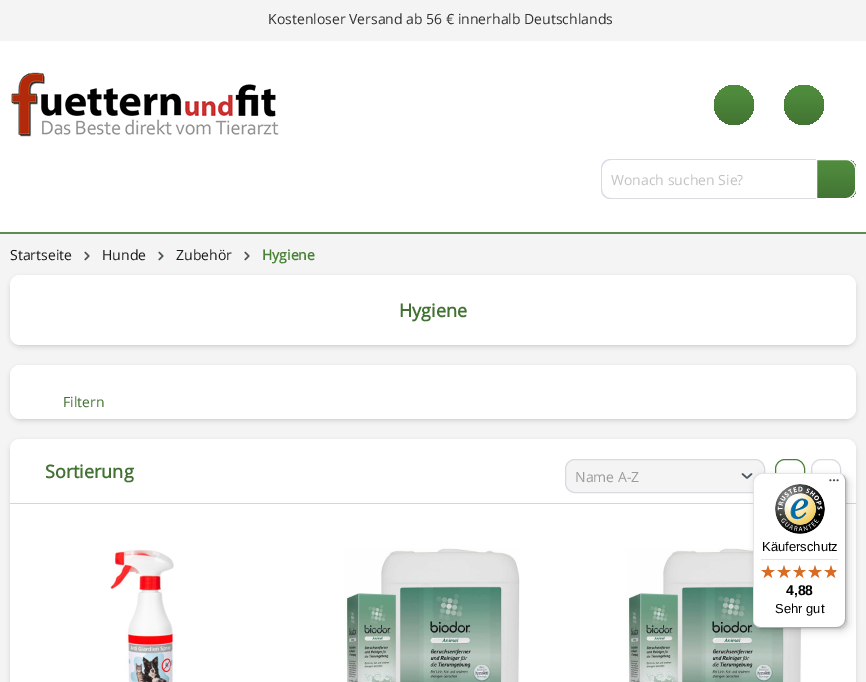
%!PS-Adobe-3.0
%%BoundingBox: 0 0 866 682
%%LanguageLevel: 3
%%Pages: 1
%%EndComments
%%BeginProlog
/setalpha { dup .setfillconstantalpha .setstrokeconstantalpha } def
/rrect { 5 dict begin { /r /h /w /y /x } { exch def } forall
  x r add y moveto x w add y 2 copy h add r arct x w add y h add x 1 index r arct
  x y h add x y r arct x y 2 copy exch w add exch r arct closepath end } def
/softshadow { 12 dict begin { /a /b /q /h /w /y /x } { exch def } forall gsave /was 0 def
  9 -2 -9 { dup b mul 4 div /e exch def 1 sub .425 mul 2.718 exch exp 1 add a .99 .min exch div /now exch def
    1 1 now sub 1 was sub div sub setalpha /was now def
    w h .min e 2 mul add 0 gt { x e sub y e sub w e 2 mul add h e 2 mul add
      q e add b .6 mul add w h .min 2 div e add .min 0 .max rrect fill } if } for grestore end } def
/drawimage { 5 dict begin { /h /w /y /x /name } { exch def } forall
  gsave x y translate w h scale
  w h 8 [w 0 0 h 0 0] name (r) file false 3 colorimage grestore end } def
%%EndProlog
%%BeginSetup
<< /PageSize [866 682] /PageUsesTransparency true >> setpagedevice
%%EndSetup
%%Page: 1 1
0 .pushpdf14devicefilter
0 682 translate 1 -1 scale
4 setmiterlimit
0.957 setgray
0 0 866 682 rectfill
1 setgray
0 41 866 191 rectfill
(images/1.raw) 11 72 268 65 drawimage
gsave newpath 734 105 20 0 360 arc closepath clip newpath
<< /ShadingType 2 /ColorSpace /DeviceRGB /Coords [734 85 734 125] /Extend [true true] /Function << /FunctionType 3 /Domain [0 1] /Functions [<< /FunctionType 2 /Domain [0 1] /C0 [0.314 0.549 0.243] /C1 [0.306 0.537 0.235] /N 1 >> << /FunctionType 2 /Domain [0 1] /C0 [0.306 0.537 0.235] /C1 [0.259 0.455 0.2] /N 1 >>] /Bounds [0.25] /Encode [0 1 0 1] >> >> shfill grestore
gsave newpath 804 105 20 0 360 arc closepath clip newpath
<< /ShadingType 2 /ColorSpace /DeviceRGB /Coords [804 85 804 125] /Extend [true true] /Function << /FunctionType 3 /Domain [0 1] /Functions [<< /FunctionType 2 /Domain [0 1] /C0 [0.314 0.549 0.243] /C1 [0.306 0.537 0.235] /N 1 >> << /FunctionType 2 /Domain [0 1] /C0 [0.306 0.537 0.235] /C1 [0.259 0.455 0.2] /N 1 >>] /Bounds [0.25] /Encode [0 1 0 1] >> >> shfill grestore
0.855 0.855 0.898 setrgbcolor
newpath 611 159 moveto 817 159 lineto 817 199 lineto 611 199 lineto 605 199 601 195 601 189 curveto 601 169 lineto 601 163 605 159 611 159 curveto closepath 611 160 moveto 817 160 lineto 817 198 lineto 611 198 lineto 606 198 602 194 602 189 curveto 602 169 lineto 602 164 606 160 611 160 curveto closepath eofill
gsave
newpath 816 159 moveto 846 159 lineto 851.5 159 856 163.5 856 169 curveto 856 189 lineto 856 194.5 851.5 199 846 199 curveto 816 199 lineto closepath clip newpath
gsave newpath 817 160 moveto 856 160 lineto 856 198 lineto 817 198 lineto closepath clip newpath
<< /ShadingType 2 /ColorSpace /DeviceRGB /Coords [836 160 836 198] /Extend [true true] /Function << /FunctionType 3 /Domain [0 1] /Functions [<< /FunctionType 2 /Domain [0 1] /C0 [0.314 0.549 0.243] /C1 [0.302 0.529 0.235] /N 1 >> << /FunctionType 2 /Domain [0 1] /C0 [0.302 0.529 0.235] /C1 [0.259 0.455 0.2] /N 1 >>] /Bounds [0.32] /Encode [0 1 0 1] >> >> shfill grestore
grestore
1 setgray
newpath 816.5 159.5 moveto 846 159.5 lineto 851 159.5 855.5 164 855.5 169 curveto 855.5 189 lineto 855.5 194 851 198.5 846 198.5 curveto 816.5 198.5 lineto closepath stroke
0.369 0.545 0.314 setrgbcolor
0 232 866 2 rectfill
(images/2.raw) 84 251 6 10 drawimage
(images/2.raw) 158 251 6 10 drawimage
(images/2.raw) 244 251 6 10 drawimage
0 setgray
12 279 842 66 8 3 0.25 softshadow
1 setgray
10 275 846 70 10 rrect fill
0 setgray
12 369 842 50 8 3 0.25 softshadow
1 setgray
10 365 846 54 10 rrect fill
0 setgray
12 443 842 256 8 3 0.25 softshadow
1 setgray
10 439 846 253 10 rrect fill
0.957 setgray
565 459 200 34 10 rrect fill
0.29 0.329 0.357 setrgbcolor
1.5 setlinewidth
1 setlinecap
1 setlinejoin
newpath 742.5 474 moveto 747 478 lineto 751.5 474 lineto stroke
0.855 0.855 0.898 setrgbcolor
1 setlinewidth
0 setlinecap
0 setlinejoin
565.5 459.5 199 33 9.5 rrect stroke
0.835 setgray
10 503 846 1 rectfill
(images/3.raw) 110 549 64 133 drawimage
(images/4.raw) 344 548 176 134 drawimage
(images/4.raw) 626 548 176 134 drawimage
0.29 0.506 0.22 setrgbcolor
775.5 459.5 29 33 9.5 rrect stroke
0.855 0.855 0.898 setrgbcolor
811.5 459.5 29 33 9.5 rrect stroke
0 setgray
756 476 93 155 8 4 0.15 softshadow
754 474 93 155 8 1 0.15 softshadow
1 setgray
753 473 93 155 8 rrect fill
0.1 setalpha
0 setgray
newpath 762 474 moveto 839 474 lineto 841 474 843 475 845 477 curveto 843 475 841 473 838 473 curveto 761 473 lineto 757 473 753 477 753 481 curveto 753 620 lineto 753 623 755 625 757 627 curveto 755 625 754 623 754 621 curveto 754 482 lineto 754 478 758 474 762 474 curveto closepath fill
0.2 setalpha
newpath 754 624 moveto 756 626 758 628 761 628 curveto 838 628 lineto 842 628 846 624 846 620 curveto 846 481 lineto 846 478 844 476 842 474 curveto 844 476 845 478 845 480 curveto 845 619 lineto 845 623 841 627 837 627 curveto 760 627 lineto 758 627 756 626 754 624 curveto closepath fill
0.196 setgray
newpath 755 625 moveto 756 627 759 628 761 628 curveto 838 628 lineto 842 628 846 624 846 620 curveto 846 481 lineto 846 479 845 476 843 475 curveto 844 476 845 478 845 480 curveto 845 619 lineto 845 624 842 627 837 627 curveto 760 627 lineto 758 627 756 626 755 625 curveto closepath fill
1 setalpha
(images/5.raw) 829 479 10 3 drawimage
0.3 setalpha
1 setgray
newpath 838 628 moveto 842.5 628 846 624.5 846 620 curveto 846 624 842 628 838 628 curveto closepath fill
1 setalpha
(images/6.raw) 775 484 50 50 drawimage
0.898 setgray
761 559 77 1 rectfill
(images/7.raw) 761 565 14 13 drawimage
(images/7.raw) 777 565 14 13 drawimage
(images/8.raw) 793 565 13 13 drawimage
(images/7.raw) 808 565 14 13 drawimage
(images/7.raw) 824 565 14 13 drawimage
(images/9.raw) 761 565 14 13 drawimage
(images/9.raw) 777 565 14 13 drawimage
(images/10.raw) 793 565 13 13 drawimage
(images/9.raw) 808 565 14 13 drawimage
(images/11.raw) 824 565 12 13 drawimage
/OpenSans-Regular [14 0 0 -14 0 0] selectfont
0.2 setgray
268 24 moveto (Kostenloser Versand ab 56 € innerhalb Deutschlands) show
0.765 setgray
611 185 moveto (Wonach suchen Sie?) show
0.106 setgray
10 260 moveto (Startseite) show
102 260 moveto (Hunde) show
176 260 moveto (Zubehör) show
/OpenSans-Bold [14 0 0 -14 0 0] selectfont
0.29 0.506 0.22 setrgbcolor
262 260 moveto (Hygiene) show
/OpenSans-Bold [18 0 0 -18 0 0] selectfont
0.255 0.447 0.2 setrgbcolor
399 317 moveto (Hygiene) show
/OpenSans-Regular [14 0 0 -14 0 0] selectfont
63 407 moveto (Filtern) show
/OpenSans-Bold [18 0 0 -18 0 0] selectfont
45 478 moveto (Sortierung) show
/OpenSans-Regular [14 0 0 -14 0 0] selectfont
0.616 0.612 0.612 setrgbcolor
575 482 moveto (Name A-Z) show
/LiberationSans-Regular [13 0 0 -13 0 0] selectfont
0 setgray
762 551 moveto (Käuferschutz) show
/LiberationSans-Bold [14 0 0 -14 0 0] selectfont
786 595 moveto (4,88) show
/LiberationSans-Regular [13 0 0 -13 0 0] selectfont
775 613 moveto (Sehr gut) show
.poppdf14devicefilter showpage
%%EOF
